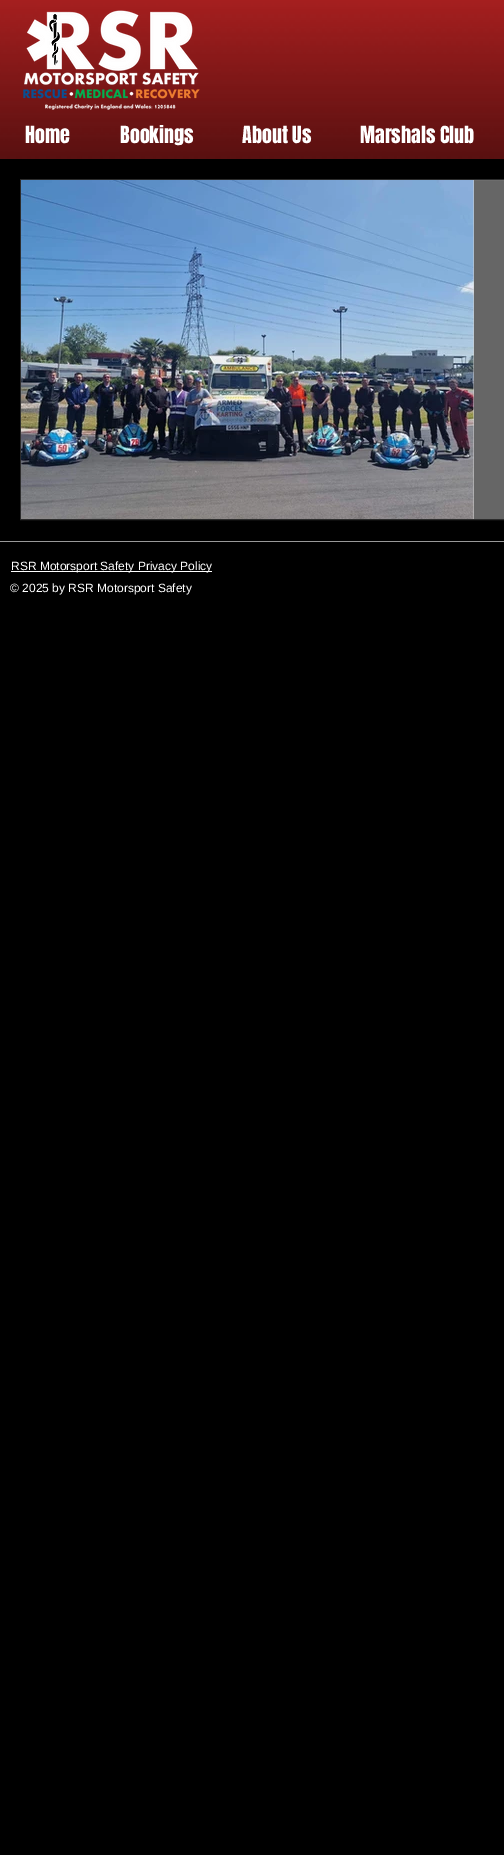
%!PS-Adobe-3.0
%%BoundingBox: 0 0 504 1855
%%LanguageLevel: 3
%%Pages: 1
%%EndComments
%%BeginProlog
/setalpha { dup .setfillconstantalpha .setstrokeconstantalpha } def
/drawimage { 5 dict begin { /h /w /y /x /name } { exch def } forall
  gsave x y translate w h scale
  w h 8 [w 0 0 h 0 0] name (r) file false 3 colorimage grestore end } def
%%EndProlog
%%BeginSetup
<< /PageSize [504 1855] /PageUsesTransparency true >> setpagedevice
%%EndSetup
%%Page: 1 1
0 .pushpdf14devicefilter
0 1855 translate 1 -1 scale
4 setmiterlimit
0 setgray
0 0 504 1855 rectfill
(images/1.raw) 0 0 504 159 drawimage
(images/2.raw) 23 10 177 100 drawimage
0.173 setgray
20.5 179.5 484 340 rectstroke
(images/3.raw) 21 180 453 339 drawimage
0.49 setalpha
0.82 setgray
473 180 31 339 rectfill
1 setalpha
0.6 setgray
0 541 504 1 rectfill
1 setgray
11 571 201 1 rectfill
/Anton-Regular [20 0 0 -20 0 0] selectfont
25 143 moveto (Home) show
120 143 moveto (Bookings) show
242 143 moveto (About Us) show
360 143 moveto (Marshals Club) show
/LiberationSans-Regular [12 0 0 -12 0 0] selectfont
11 570 moveto (RSR Motorsport Safety Privacy Policy) show
10 592 moveto (© 2025 by RSR Motorsport Safety) show
.poppdf14devicefilter showpage
%%EOF
